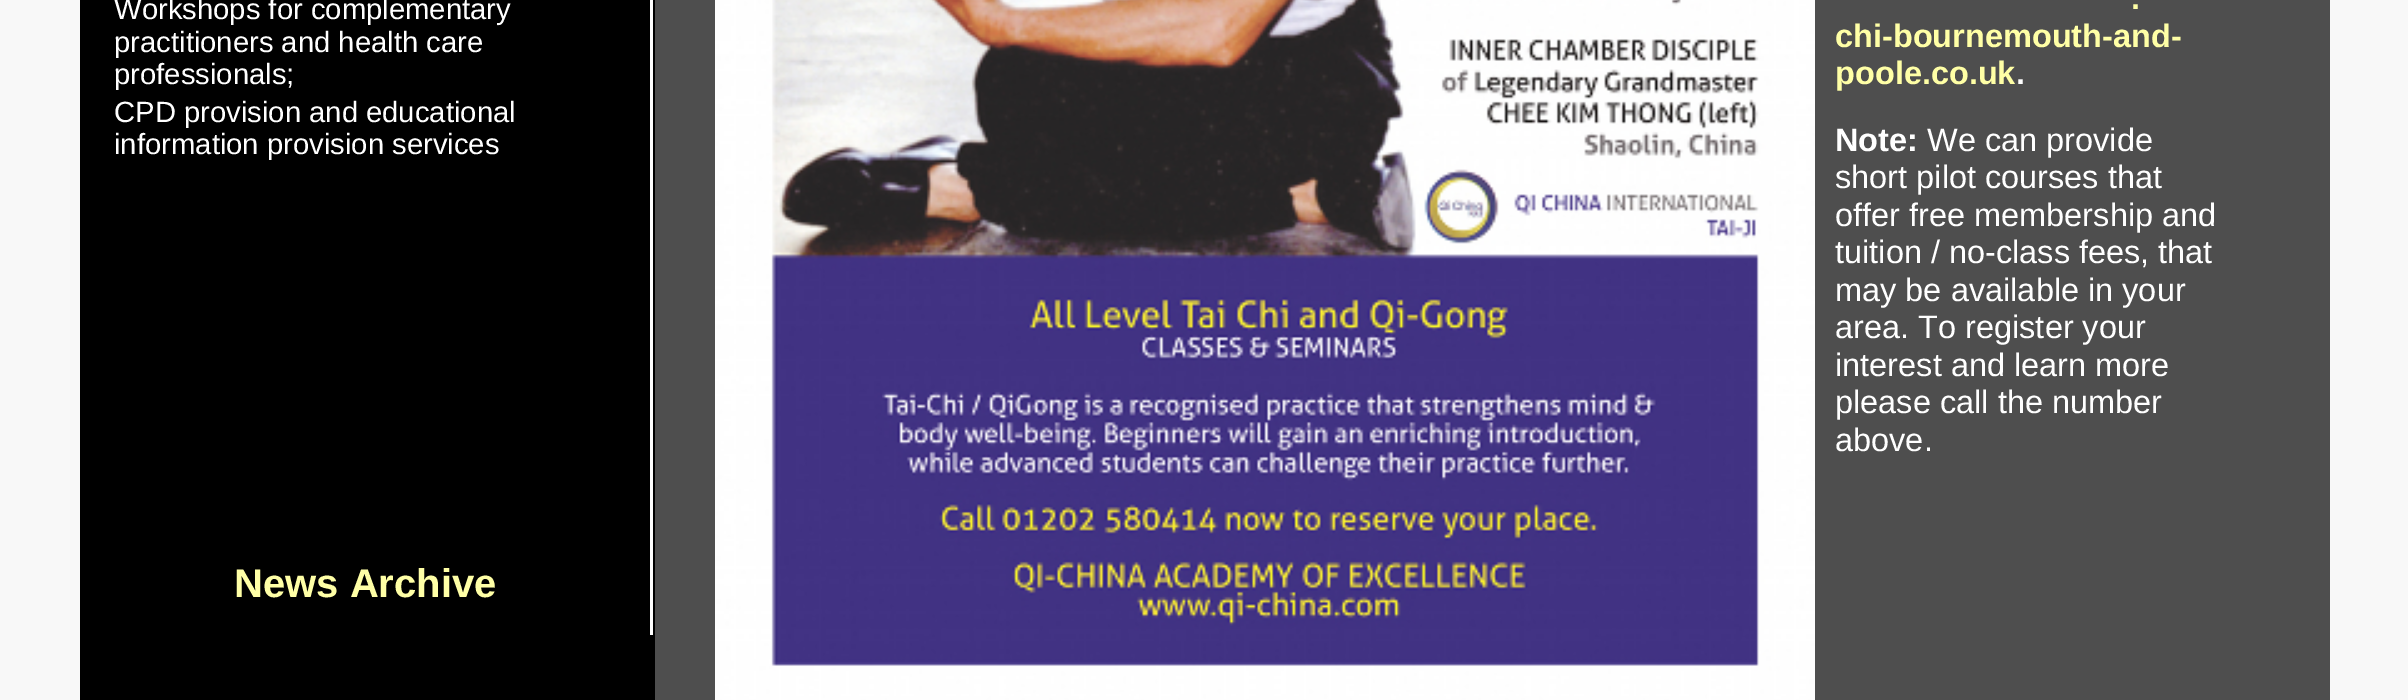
%!PS-Adobe-3.0
%%BoundingBox: 0 0 2408 700
%%LanguageLevel: 3
%%Pages: 1
%%EndComments
%%BeginProlog
/drawimage { 5 dict begin { /h /w /y /x /name } { exch def } forall
  gsave x y translate w h scale
  w h 8 [w 0 0 h 0 0] name (r) file false 3 colorimage grestore end } def
%%EndProlog
%%BeginSetup
<< /PageSize [2408 700] >> setpagedevice
%%EndSetup
%%Page: 1 1
0 700 translate 1 -1 scale
4 setmiterlimit
0.973 setgray
0 0 2408 700 rectfill
0 setgray
80 0 575 700 rectfill
1 setgray
650 0 3 635 rectfill
0.306 setgray
655 0 1675 700 rectfill
(images/1.raw) 715 0 1100 700 drawimage
/LiberationSans-Regular [29.25 0 0 -29.25 0 0] selectfont
1 setgray
114 19 moveto (Workshops for complementary) show
114 52 moveto (practitioners and health care) show
114 84 moveto (professionals;) show
114 122 moveto (CPD provision and educational) show
114 154 moveto (information provision services) show
/LiberationSans-Bold [40 0 0 -40 0 0] selectfont
1 1 0.651 setrgbcolor
234 597 moveto (News Archive) show
/LiberationSans-Bold [32.5 0 0 -32.5 0 0] selectfont
2131 9 moveto (.) show
1835 47 moveto (chi-bournemouth-and-) show
1835 84 moveto (poole.co.uk) show
1 setgray
2016 84 moveto (.) show
1835 151 moveto (Note:) show
/LiberationSans-Regular [32.5 0 0 -32.5 0 0] selectfont
1927 151 moveto (We can provide) show
1835 188 moveto (short pilot courses that) show
1835 226 moveto (offer free membership and) show
1835 263 moveto (tuition / no-class fees, that) show
1835 301 moveto (may be available in your) show
1835 338 moveto (area. To register your) show
1835 376 moveto (interest and learn more) show
1835 413 moveto (please call the number) show
1835 451 moveto (above.) show
showpage
%%EOF
